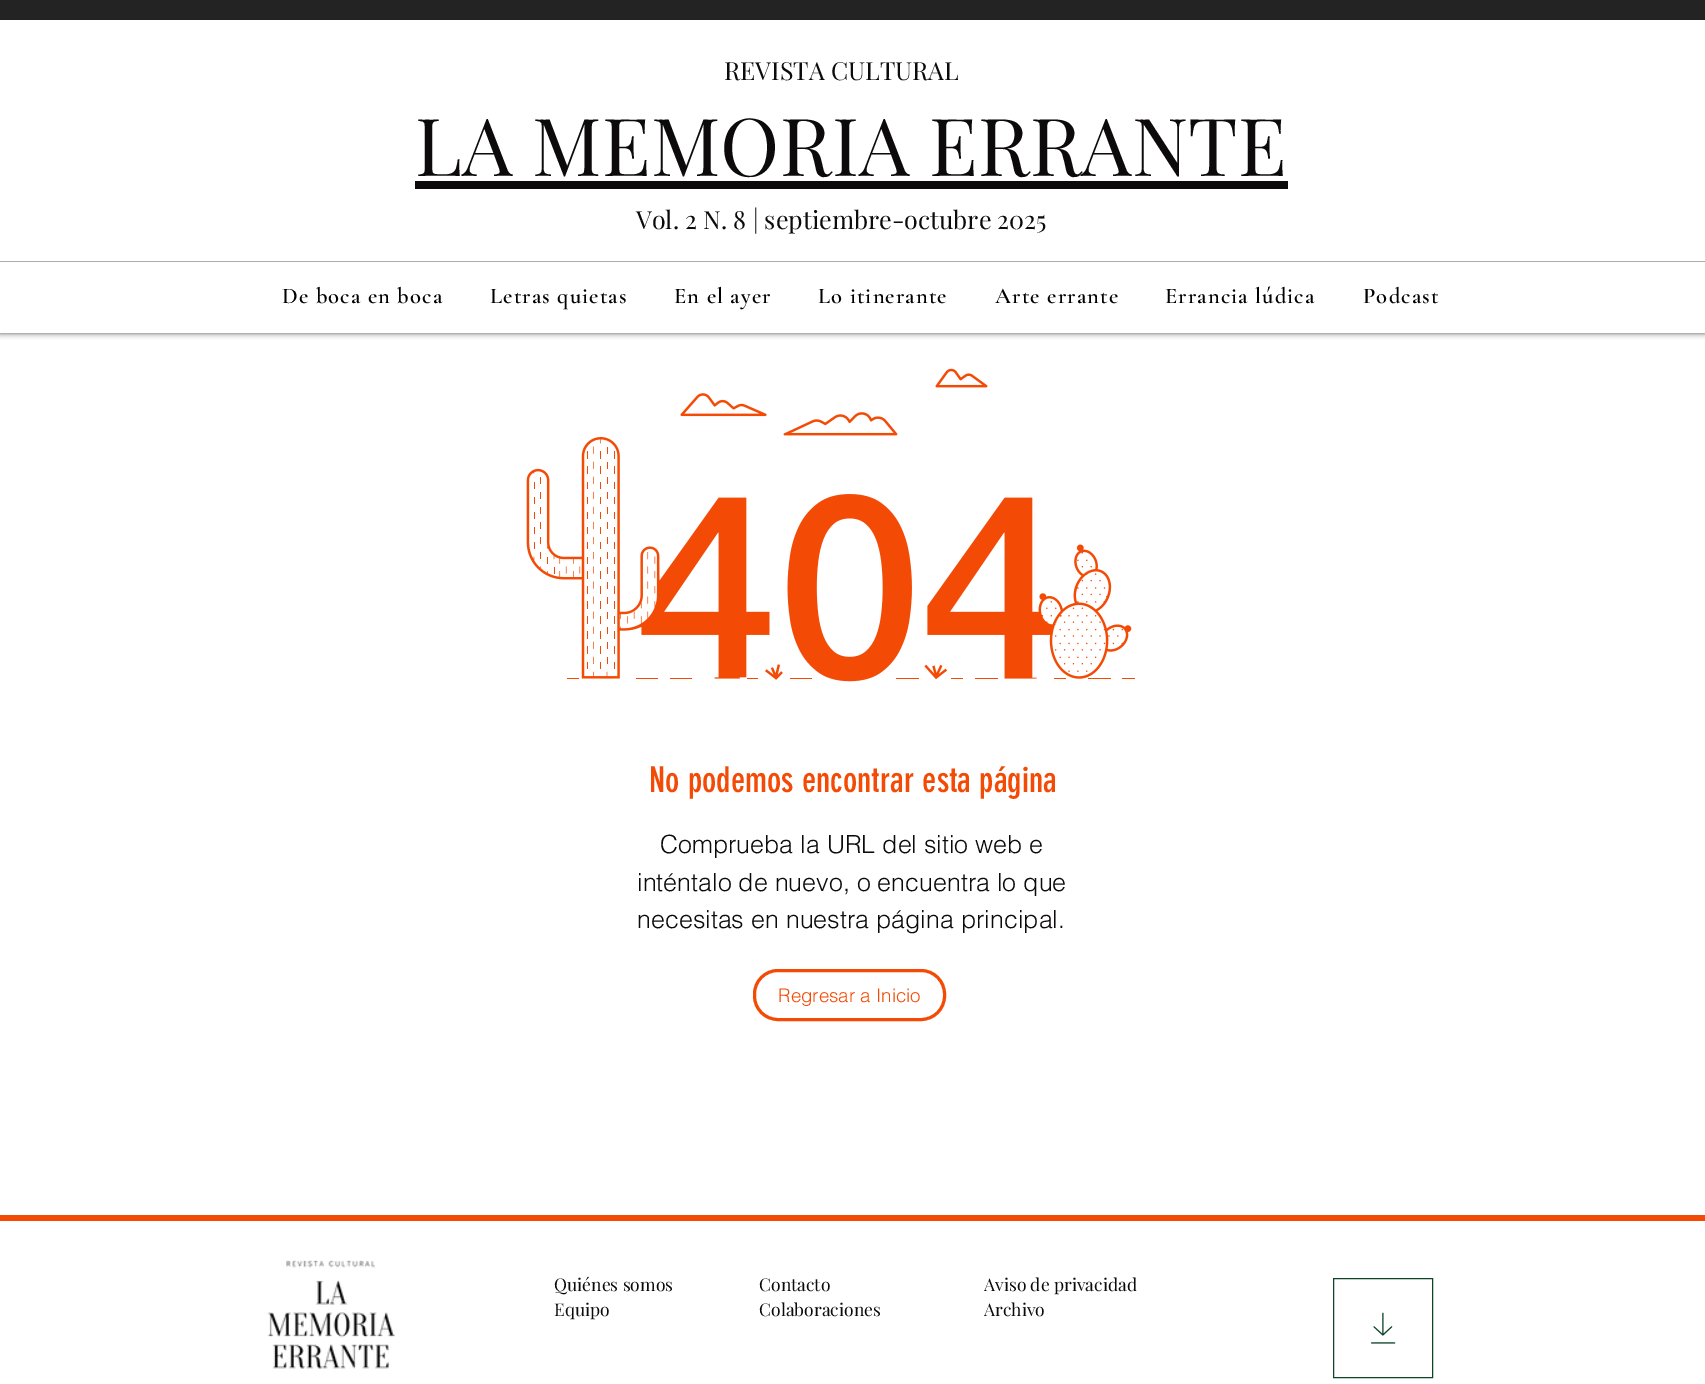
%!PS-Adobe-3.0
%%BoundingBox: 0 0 1705 1384
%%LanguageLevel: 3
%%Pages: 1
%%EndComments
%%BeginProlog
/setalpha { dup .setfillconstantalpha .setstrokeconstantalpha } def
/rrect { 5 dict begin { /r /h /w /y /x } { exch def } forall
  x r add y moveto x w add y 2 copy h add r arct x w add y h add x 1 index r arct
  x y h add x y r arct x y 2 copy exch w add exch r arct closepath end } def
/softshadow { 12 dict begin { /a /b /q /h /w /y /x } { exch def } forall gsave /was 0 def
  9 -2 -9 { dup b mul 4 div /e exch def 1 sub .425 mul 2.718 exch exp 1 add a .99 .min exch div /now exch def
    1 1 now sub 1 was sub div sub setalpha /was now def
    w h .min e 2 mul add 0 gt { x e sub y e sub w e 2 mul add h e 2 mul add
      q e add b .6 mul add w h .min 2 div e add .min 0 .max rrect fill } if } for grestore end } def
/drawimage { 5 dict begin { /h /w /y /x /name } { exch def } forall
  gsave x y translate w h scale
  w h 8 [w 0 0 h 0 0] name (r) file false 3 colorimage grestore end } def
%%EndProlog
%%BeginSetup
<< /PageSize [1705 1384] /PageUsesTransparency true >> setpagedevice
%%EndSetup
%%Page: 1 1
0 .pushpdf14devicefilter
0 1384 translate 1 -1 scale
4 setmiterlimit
1 setgray
0 0 1705 1384 rectfill
gsave
newpath 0 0 moveto 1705 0 lineto 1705 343 lineto 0 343 lineto closepath 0 -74 moveto 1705 -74 lineto 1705 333 lineto 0 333 lineto closepath eoclip newpath
0 setgray
0 -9 1705 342 0 3 0.7 softshadow
grestore
0.141 0.137 0.137 setrgbcolor
0 0 1705 20 rectfill
0.047 0.039 0.039 setrgbcolor
415 181 873 8 rectfill
0.675 setgray
0 261 1705 1 rectfill
(images/1.raw) 526 368 609 314 drawimage
0.953 0.294 0.024 setrgbcolor
3 setlinewidth
754.5 970.5 190 49 23.5 rrect stroke
0 1215 1705 6 rectfill
(images/2.raw) 267 1260 129 109 drawimage
0.047 0.267 0.149 setrgbcolor
1 setlinewidth
1333.5 1278.5 99 99 rectstroke
(images/3.raw) 1371 1312 25 32 drawimage
/PlayfairDisplay-Regular [25 0 0 -25 0 0] selectfont
0.047 0.039 0.039 setrgbcolor
724 80 moveto (REVISTA CULTURAL) show
/PlayfairDisplay-Regular [80 0 0 -80 0 0] selectfont
415 176 moveto (LA MEMORIA ERRANTE) show
/PlayfairDisplay-Regular [25 0 0 -25 0 0] selectfont
636 229 moveto (Vol. 2 N. 8 | septiembre-octubre 2025) show
/CormorantGaramond-SemiBold [22.5 0 0 -22.5 0 0] selectfont
0 setgray
282 303 moveto 1.1 0 (De boca en boca) ashow
490 303 moveto 1.1 0 (Letras quietas) ashow
674 303 moveto 1.1 0 (En el ayer) ashow
818 303 moveto 1.1 0 (Lo itinerante) ashow
995 303 moveto 1.1 0 (Arte errante) ashow
1165 303 moveto 1.1 0 (Errancia lúdica) ashow
1363 303 moveto 1.1 0 (Podcast) ashow
/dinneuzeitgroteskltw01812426-Regular [35 0 0 -35 0 0] selectfont
0.953 0.294 0.024 setrgbcolor
649 792 moveto (No podemos encontrar esta página) show
/helvetica-Light [25 0 0 -25 0 0] selectfont
0.047 0.039 0.039 setrgbcolor
660 853 moveto (Comprueba la URL del sitio web e) show
637 891 moveto (inténtalo de nuevo, o encuentra lo que) show
637 928 moveto (necesitas en nuestra página principal.) show
/helvetica-Light [18.75 0 0 -18.75 0 0] selectfont
0.953 0.294 0.024 setrgbcolor
778 1002 moveto (Regresar a Inicio) show
/PlayfairDisplay-Regular [17.5 0 0 -17.5 0 0] selectfont
0.047 0.039 0.039 setrgbcolor
554 1291 moveto (Quiénes somos) show
554 1316 moveto (Equipo) show
759 1291 moveto (Contacto) show
759 1316 moveto (Colaboraciones) show
984 1291 moveto (Aviso de privacidad) show
984 1316 moveto (Archivo) show
.poppdf14devicefilter showpage
%%EOF
